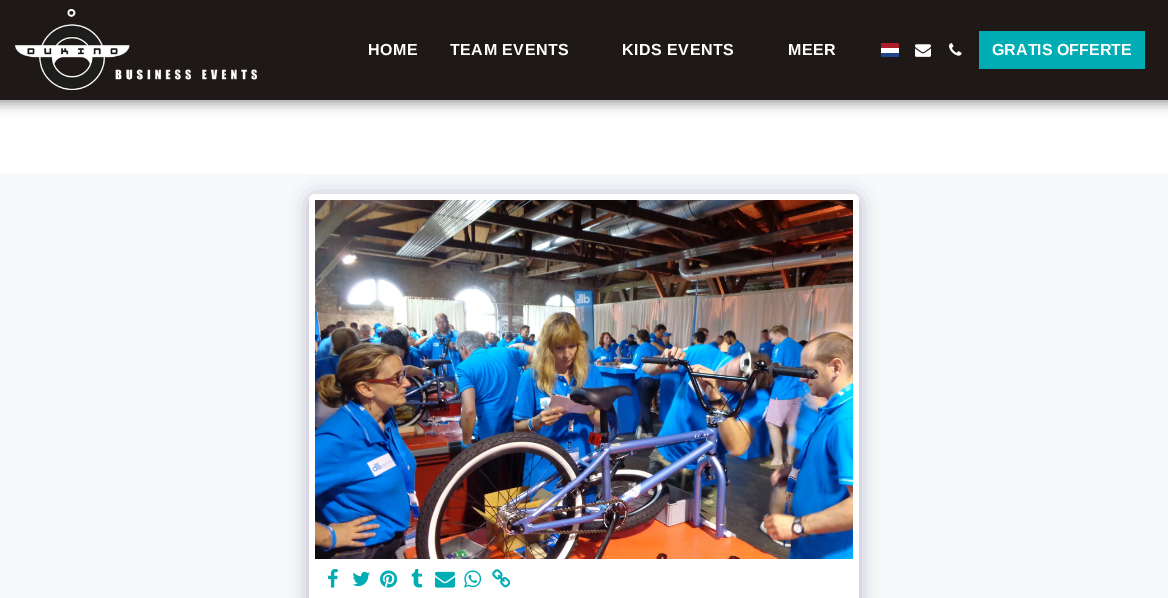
%!PS-Adobe-3.0
%%BoundingBox: 0 0 1168 598
%%LanguageLevel: 3
%%Pages: 1
%%EndComments
%%BeginProlog
/setalpha { dup .setfillconstantalpha .setstrokeconstantalpha } def
/rrect { 5 dict begin { /r /h /w /y /x } { exch def } forall
  x r add y moveto x w add y 2 copy h add r arct x w add y h add x 1 index r arct
  x y h add x y r arct x y 2 copy exch w add exch r arct closepath end } def
/softshadow { 12 dict begin { /a /b /q /h /w /y /x } { exch def } forall gsave /was 0 def
  9 -2 -9 { dup b mul 4 div /e exch def 1 sub .425 mul 2.718 exch exp 1 add a .99 .min exch div /now exch def
    1 1 now sub 1 was sub div sub setalpha /was now def
    w h .min e 2 mul add 0 gt { x e sub y e sub w e 2 mul add h e 2 mul add
      q e add b .6 mul add w h .min 2 div e add .min 0 .max rrect fill } if } for grestore end } def
/drawimage { 5 dict begin { /h /w /y /x /name } { exch def } forall
  gsave x y translate w h scale
  w h 8 [w 0 0 h 0 0] name (r) file false 3 colorimage grestore end } def
%%EndProlog
%%BeginSetup
<< /PageSize [1168 598] /PageUsesTransparency true >> setpagedevice
%%EndSetup
%%Page: 1 1
0 .pushpdf14devicefilter
0 598 translate 1 -1 scale
4 setmiterlimit
0.973 0.976 0.984 setrgbcolor
0 0 1168 598 rectfill
1 setgray
0 100 1168 74 rectfill
0 setgray
-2 0 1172 104 0 6 0.35 softshadow
0.118 0.094 0.09 setrgbcolor
0 0 1168 99 rectfill
0.106 0.098 0.098 setrgbcolor
0 99 1168 1 rectfill
(images/1.raw) 15 9 242 81 drawimage
0.129 0.275 0.545 setrgbcolor
881 53 18 4 rectfill
1 setgray
881 48 18 5 rectfill
0.682 0.11 0.157 setrgbcolor
881 43 18 5 rectfill
(images/2.raw) 915 44 16 13 drawimage
(images/3.raw) 949 43 13 13 drawimage
0 0.678 0.71 setrgbcolor
979 31 166 38 rectfill
0.302 0.247 0.478 setrgbcolor
309 197 550 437 6 10 0.4 softshadow
1 setgray
309 194 550 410 6 rrect fill
(images/4.raw) 315 200 538 359 drawimage
(images/5.raw) 328 569 10 19 drawimage
(images/6.raw) 352 571 18 16 drawimage
(images/7.raw) 380 570 17 18 drawimage
(images/8.raw) 411 569 12 19 drawimage
(images/9.raw) 435 571 20 17 drawimage
(images/10.raw) 464 570 17 18 drawimage
(images/11.raw) 492 569 18 19 drawimage
/LiberationSans-Bold [16 0 0 -16 0 0] selectfont
368 55 moveto 0.5 0 (HOME) ashow
450 55 moveto 0.5 0 (TEAM EVENTS) ashow
622 55 moveto 0.5 0 (KIDS EVENTS) ashow
788 55 moveto 0.5 0 (MEER) ashow
992 55 moveto (GRATIS OFFERTE) show
.poppdf14devicefilter showpage
%%EOF
